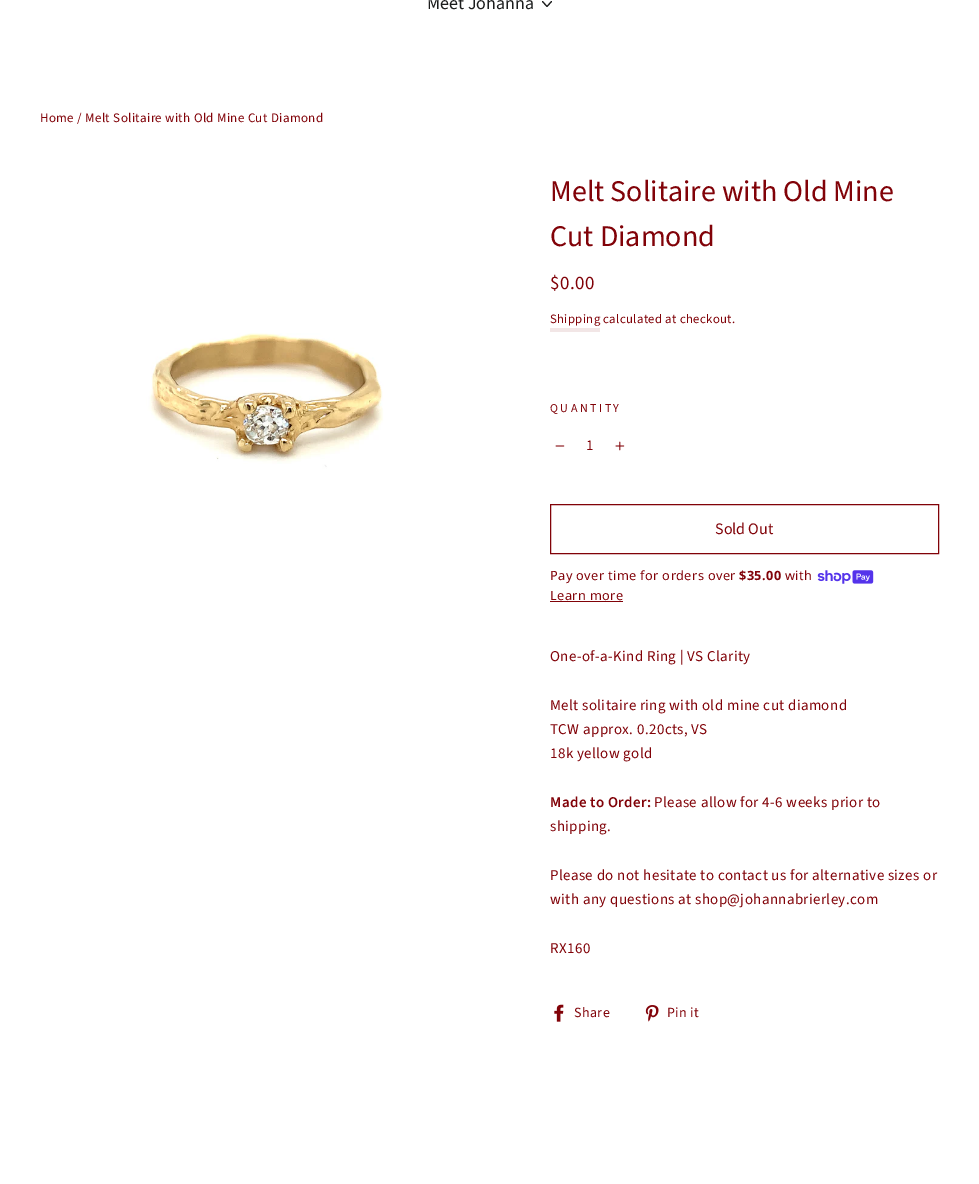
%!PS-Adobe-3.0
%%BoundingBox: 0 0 979 1184
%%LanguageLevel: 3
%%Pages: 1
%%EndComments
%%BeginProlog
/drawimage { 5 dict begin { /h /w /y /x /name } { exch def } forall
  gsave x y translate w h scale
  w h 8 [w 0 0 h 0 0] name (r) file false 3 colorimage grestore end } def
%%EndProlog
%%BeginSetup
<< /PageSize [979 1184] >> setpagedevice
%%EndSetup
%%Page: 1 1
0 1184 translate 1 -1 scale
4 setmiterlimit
1 setgray
0 0 979 1184 rectfill
0.11 0.114 0.114 setrgbcolor
1.1 setlinewidth
1 setlinecap
1 setlinejoin
newpath 542.5 1.5 moveto 547 6.5 lineto 551.5 1.5 lineto stroke
(images/1.raw) 40 169 435 434 drawimage
0.949 0.902 0.902 setrgbcolor
550 328 50 4 rectfill
(images/2.raw) 555 445 10 2 drawimage
(images/3.raw) 615 441 10 10 drawimage
0.506 0.008 0.031 setrgbcolor
1 setlinewidth
0 setlinecap
0 setlinejoin
550.5 504.5 388 49 rectstroke
(images/4.raw) 817 570 57 14 drawimage
550 601 73 1 rectfill
(images/5.raw) 554 1004 10 18 drawimage
(images/6.raw) 645 1005 14 17 drawimage
/SourceSansPro-Regular [18 0 0 -18 0 0] selectfont
0.11 0.114 0.114 setrgbcolor
427 9 moveto (Meet Johanna) show
/SourceSansPro-Regular [13 0 0 -13 0 0] selectfont
0.506 0.008 0.031 setrgbcolor
40 122 moveto 0.38 0 (Home / Melt Solitaire with Old Mine Cut Diamond) ashow
/SourceSansPro-Regular [30 0 0 -30 0 0] selectfont
550 201 moveto (Melt Solitaire with Old Mine) show
550 246 moveto (Cut Diamond) show
/SourceSansPro-Regular [19 0 0 -19 0 0] selectfont
550 289 moveto 0.38 0 ($0.00) ashow
/SourceSansPro-Regular [12.75 0 0 -12.75 0 0] selectfont
550 323 moveto 0.38 0 (Shipping) ashow
603 323 moveto 0.38 0 (calculated at checkout.) ashow
/SourceSansPro-Regular [12 0 0 -12 0 0] selectfont
550 412 moveto 2.5 0 (QUANTITY) ashow
/SourceSansPro-Regular [15 0 0 -15 0 0] selectfont
586 450 moveto 0.38 0 (1) ashow
/SourceSansPro-Regular [16 0 0 -16 0 0] selectfont
715 534 moveto (Sold Out) show
/NotoSans-Regular [12.75 0 0 -12.75 0 0] selectfont
550 580 moveto 0.38 0 (Pay over time for orders over) ashow
/NotoSans-Bold [12.75 0 0 -12.75 0 0] selectfont
739 580 moveto 0.38 0 ($35.00) ashow
/NotoSans-Regular [12.75 0 0 -12.75 0 0] selectfont
785 580 moveto 0.38 0 (with) ashow
550 600 moveto 0.38 0 (Learn more) ashow
/SourceSansPro-Regular [15 0 0 -15 0 0] selectfont
550 661 moveto 0.38 0 (One-of-a-Kind Ring | VS Clarity) ashow
550 710 moveto 0.38 0 (Melt solitaire ring with old mine cut diamond) ashow
550 734 moveto 0.38 0 (TCW approx. 0.20cts, VS) ashow
550 758 moveto 0.38 0 (18k yellow gold) ashow
/SourceSansPro-SemiBold [15 0 0 -15 0 0] selectfont
550 807 moveto 0.38 0 (Made to Order:) ashow
/SourceSansPro-Regular [15 0 0 -15 0 0] selectfont
654 807 moveto 0.38 0 (Please allow for 4-6 weeks prior to) ashow
550 831 moveto 0.38 0 (shipping.) ashow
550 880 moveto 0.38 0 (Please do not hesitate to contact us for alternative sizes or) ashow
550 904 moveto 0.38 0 (with any questions at shop@johannabrierley.com) ashow
550 953 moveto 0.38 0 (RX160) ashow
/SourceSansPro-Regular [14 0 0 -14 0 0] selectfont
574 1017 moveto 0.38 0 (Share) ashow
667 1017 moveto 0.38 0 (Pin it) ashow
showpage
%%EOF
